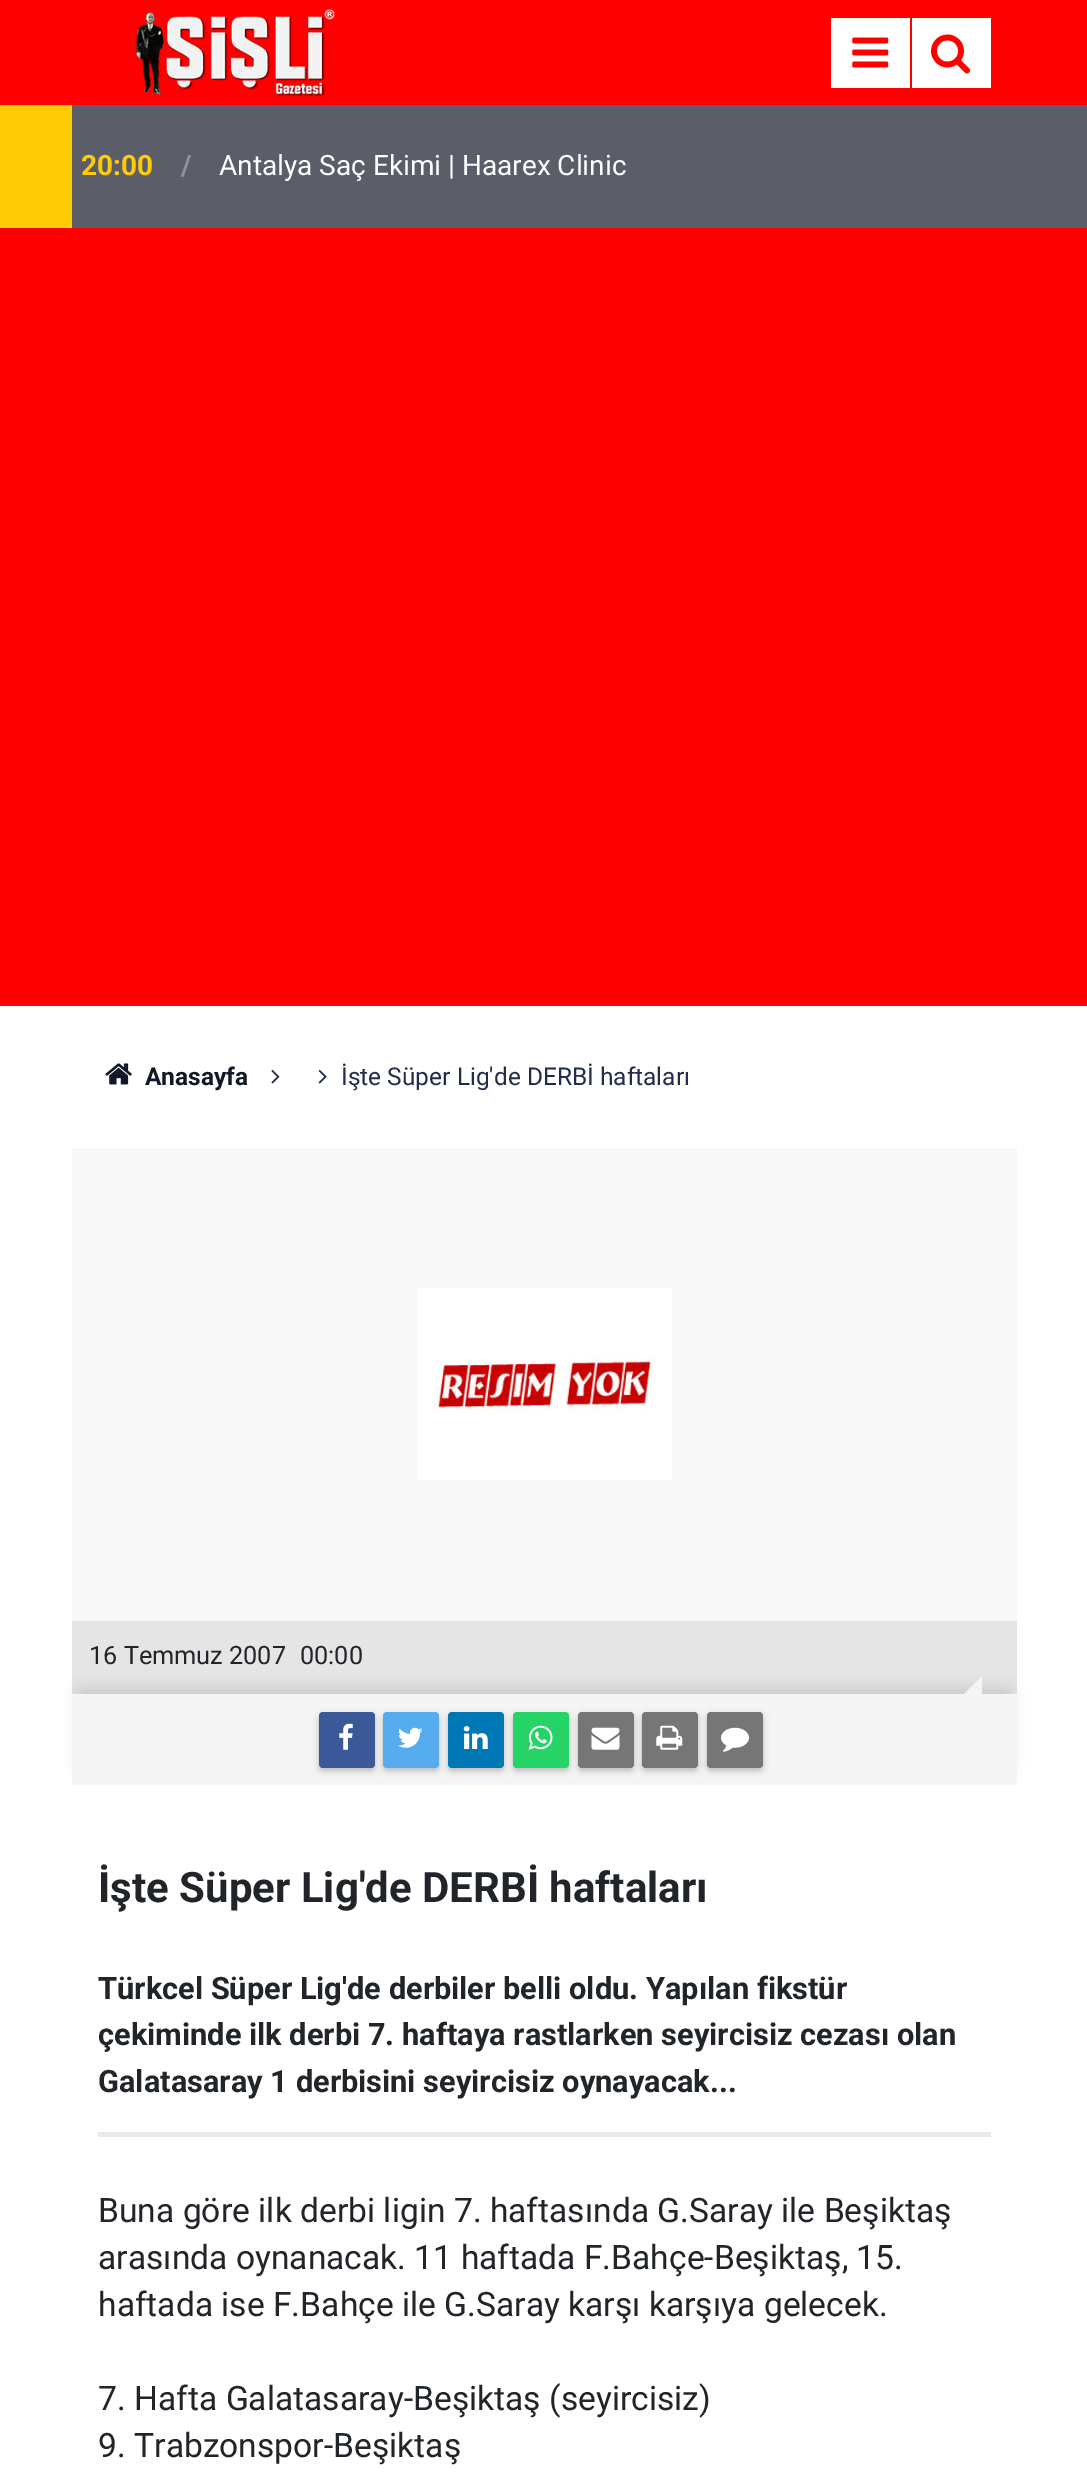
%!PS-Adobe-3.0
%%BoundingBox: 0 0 1087 2489
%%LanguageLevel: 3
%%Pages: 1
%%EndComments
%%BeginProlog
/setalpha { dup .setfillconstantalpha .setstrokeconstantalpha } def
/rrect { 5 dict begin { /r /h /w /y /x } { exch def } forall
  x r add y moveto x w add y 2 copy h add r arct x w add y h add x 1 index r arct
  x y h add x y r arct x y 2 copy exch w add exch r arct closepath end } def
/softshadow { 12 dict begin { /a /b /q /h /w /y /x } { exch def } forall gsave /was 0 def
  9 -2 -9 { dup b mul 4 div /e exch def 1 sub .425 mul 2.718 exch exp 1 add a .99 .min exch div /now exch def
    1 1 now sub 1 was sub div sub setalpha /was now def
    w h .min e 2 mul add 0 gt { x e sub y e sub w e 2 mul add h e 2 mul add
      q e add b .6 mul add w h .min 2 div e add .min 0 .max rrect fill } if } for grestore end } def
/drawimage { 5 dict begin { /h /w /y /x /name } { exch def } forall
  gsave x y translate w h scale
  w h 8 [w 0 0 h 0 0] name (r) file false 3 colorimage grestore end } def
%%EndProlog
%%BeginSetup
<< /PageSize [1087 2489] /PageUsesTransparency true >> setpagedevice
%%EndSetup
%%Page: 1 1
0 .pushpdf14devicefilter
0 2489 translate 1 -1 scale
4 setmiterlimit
1 setgray
0 0 1087 2489 rectfill
1 0 0 setrgbcolor
0 0 1087 1006 rectfill
(images/1.raw) 135 8 200 89 drawimage
1 setgray
831 18 79 70 rectfill
(images/2.raw) 852 37 37 31 drawimage
912 18 79 70 rectfill
(images/3.raw) 931 34 39 40 drawimage
1 0.796 0.02 setrgbcolor
0 105 72 123 rectfill
0.357 0.369 0.408 setrgbcolor
72 105 1015 123 rectfill
(images/4.raw) 105 1063 27 22 drawimage
(images/5.raw) 271 1069 9 15 drawimage
(images/6.raw) 318 1069 9 15 drawimage
0.973 setgray
72 1148 945 473 rectfill
(images/7.raw) 417 1288 255 192 drawimage
0.898 setgray
72 1621 945 73 rectfill
0 setgray
81 1691 927 73 0 9 0.15 softshadow
0.961 setgray
72 1694 945 91 rectfill
newpath 982 1694 moveto 964 1694 lineto 982 1676.5 lineto closepath fill
0.196 setgray
319 1715 56 56 4 3.5 0.3 softshadow
0.231 0.349 0.6 setrgbcolor
319 1712 56 56 4 rrect fill
(images/8.raw) 339 1723 14 27 drawimage
0.196 setgray
383 1715 56 56 4 3.5 0.3 softshadow
0.333 0.675 0.933 setrgbcolor
383 1712 56 56 4 rrect fill
(images/9.raw) 398 1727 25 21 drawimage
0.196 setgray
448 1715 56 56 4 3.5 0.3 softshadow
0 0.467 0.71 setrgbcolor
448 1712 56 56 4 rrect fill
(images/10.raw) 463 1726 25 23 drawimage
0.196 setgray
513 1715 56 56 4 3.5 0.3 softshadow
0.145 0.827 0.4 setrgbcolor
513 1712 56 56 4 rrect fill
(images/11.raw) 528 1725 25 25 drawimage
0.196 setgray
578 1715 56 56 4 3.5 0.3 softshadow
0.463 setgray
578 1712 56 56 4 rrect fill
(images/12.raw) 591 1727 29 23 drawimage
0.196 setgray
642 1715 56 56 4 3.5 0.3 softshadow
0.463 setgray
642 1712 56 56 4 rrect fill
(images/13.raw) 656 1725 27 25 drawimage
0.196 setgray
707 1715 56 56 4 3.5 0.3 softshadow
0.463 setgray
707 1712 56 56 4 rrect fill
(images/14.raw) 721 1727 28 25 drawimage
0.914 setgray
98 2132 893 5 rectfill
/Roboto-Bold [28 0 0 -28 0 0] selectfont
1 0.796 0.02 setrgbcolor
81 175 moveto (20:00) show
0.561 0.576 0.631 setrgbcolor
181 175 moveto (/) show
/Roboto-Regular [28 0 0 -28 0 0] selectfont
1 setgray
219 175 moveto (Antalya Saç Ekimi | Haarex Clinic) show
/Roboto-Bold [24.5 0 0 -24.5 0 0] selectfont
0.071 0.094 0.165 setrgbcolor
145 1085 moveto (Anasayfa) show
/Roboto-Regular [24.5 0 0 -24.5 0 0] selectfont
0.129 0.173 0.306 setrgbcolor
341 1085 moveto (İşte Süper Lig'de DERBİ haftaları) show
/Roboto-Regular [25.25 0 0 -25.25 0 0] selectfont
0.129 0.145 0.161 setrgbcolor
89 1664 moveto (16 Temmuz 2007) show
300 1664 moveto (00:00) show
/Roboto-Bold [42 0 0 -42 0 0] selectfont
98 1902 moveto (İşte Süper Lig'de DERBİ haftaları) show
/Roboto-Bold [30.8 0 0 -30.8 0 0] selectfont
98 1999 moveto (Türkcel Süper Lig'de derbiler belli oldu. Yapılan fikstür) show
98 2045 moveto (çekiminde ilk derbi 7. haftaya rastlarken seyircisiz cezası olan) show
98 2092 moveto (Galatasaray 1 derbisini seyircisiz oynayacak...) show
/Roboto-Regular [33.6 0 0 -33.6 0 0] selectfont
98 2222 moveto (Buna göre ilk derbi ligin 7. haftasında G.Saray ile Beşiktaş) show
98 2269 moveto (arasında oynanacak. 11 haftada F.Bahçe-Beşiktaş, 15.) show
98 2316 moveto (haftada ise F.Bahçe ile G.Saray karşı karşıya gelecek.) show
98 2410 moveto (7. Hafta Galatasaray-Beşiktaş \(seyircisiz\)) show
98 2457 moveto (9. Trabzonspor-Beşiktaş) show
.poppdf14devicefilter showpage
%%EOF
